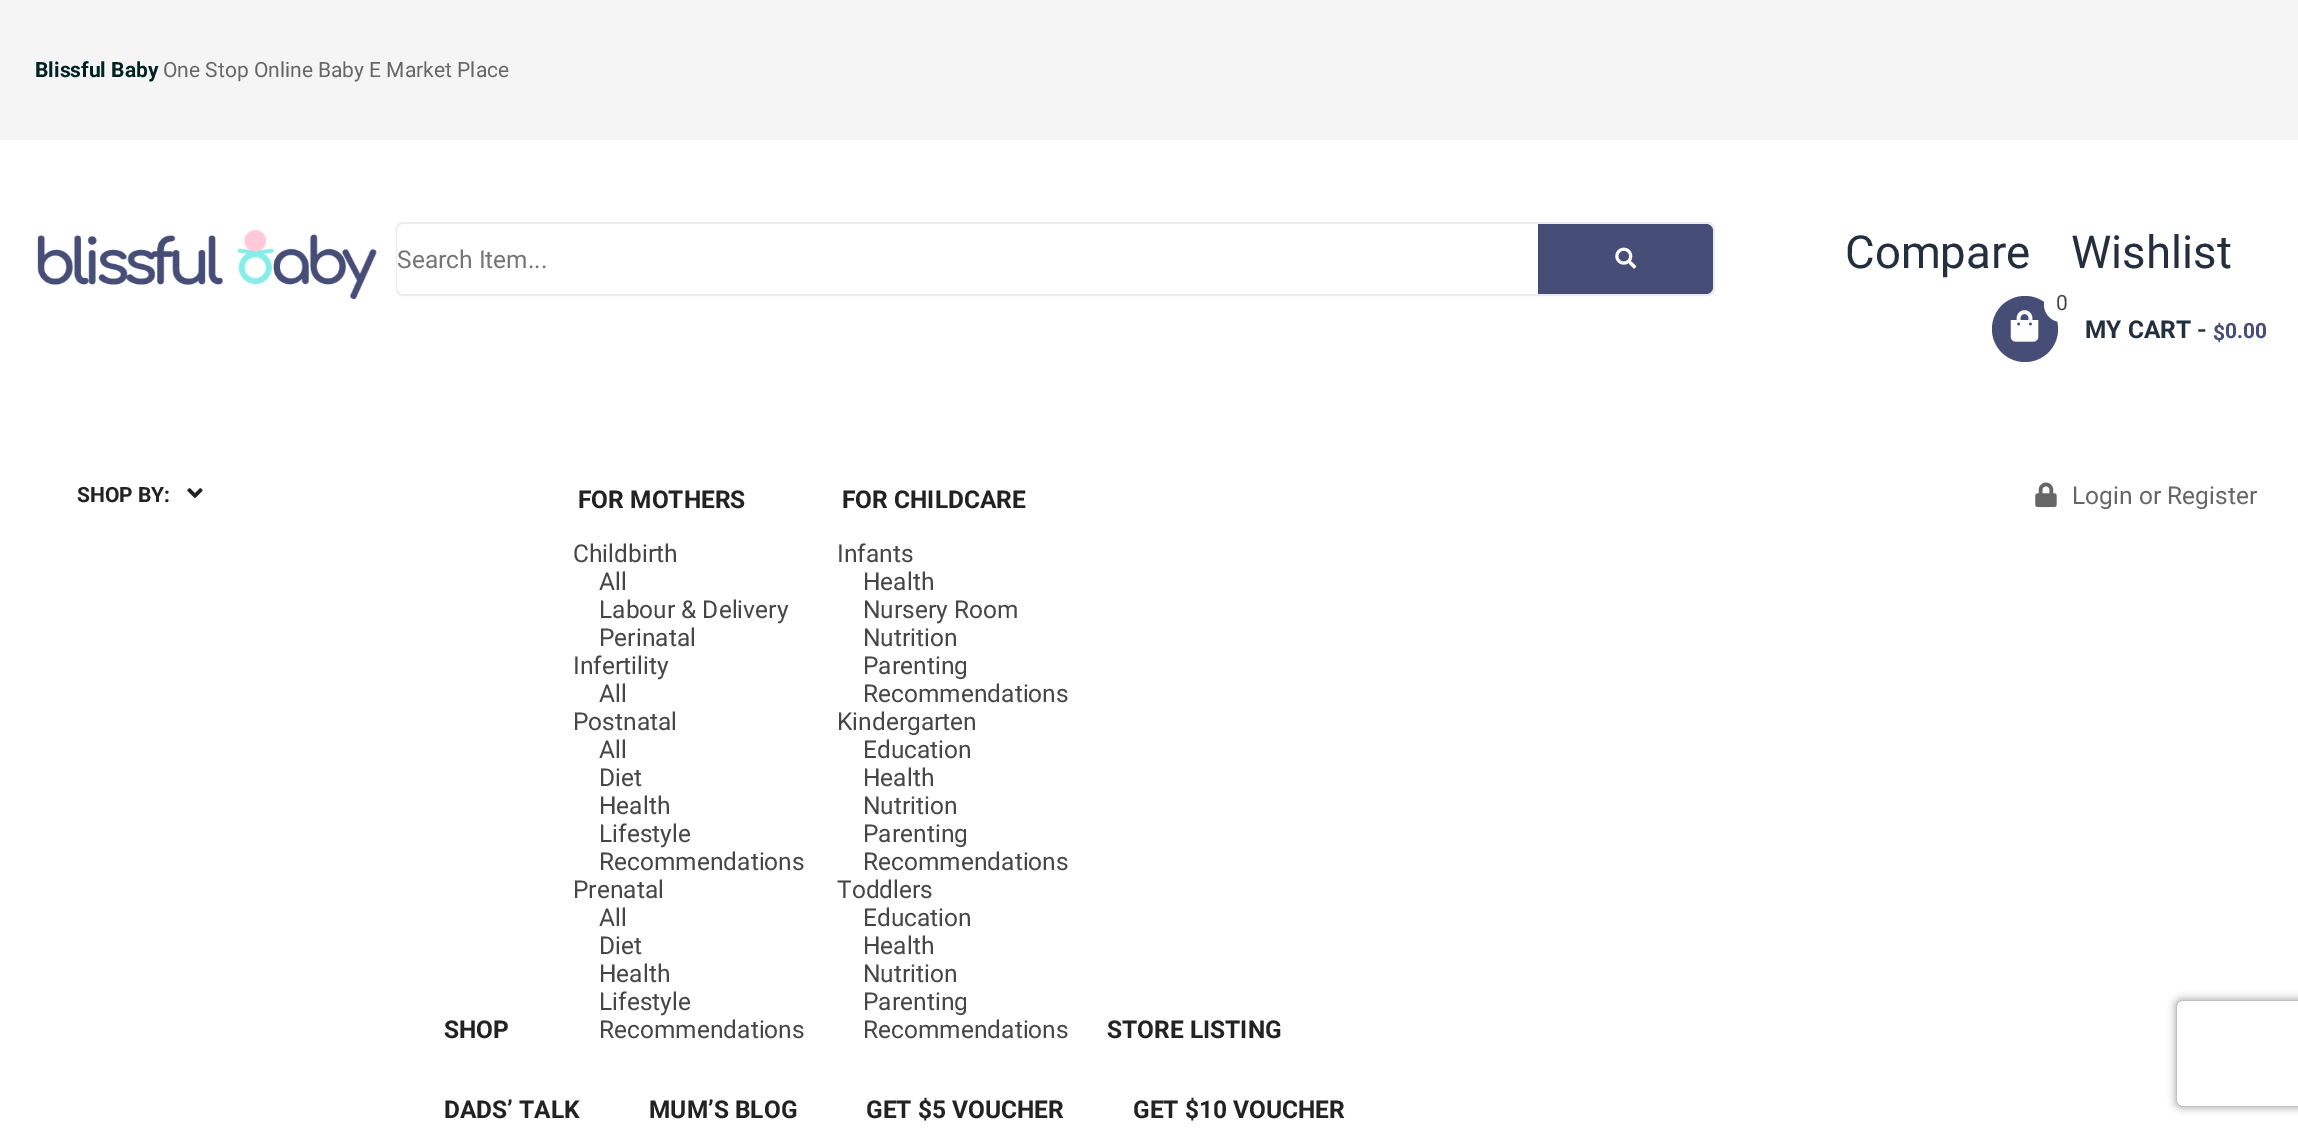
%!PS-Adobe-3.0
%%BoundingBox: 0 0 2298 1130
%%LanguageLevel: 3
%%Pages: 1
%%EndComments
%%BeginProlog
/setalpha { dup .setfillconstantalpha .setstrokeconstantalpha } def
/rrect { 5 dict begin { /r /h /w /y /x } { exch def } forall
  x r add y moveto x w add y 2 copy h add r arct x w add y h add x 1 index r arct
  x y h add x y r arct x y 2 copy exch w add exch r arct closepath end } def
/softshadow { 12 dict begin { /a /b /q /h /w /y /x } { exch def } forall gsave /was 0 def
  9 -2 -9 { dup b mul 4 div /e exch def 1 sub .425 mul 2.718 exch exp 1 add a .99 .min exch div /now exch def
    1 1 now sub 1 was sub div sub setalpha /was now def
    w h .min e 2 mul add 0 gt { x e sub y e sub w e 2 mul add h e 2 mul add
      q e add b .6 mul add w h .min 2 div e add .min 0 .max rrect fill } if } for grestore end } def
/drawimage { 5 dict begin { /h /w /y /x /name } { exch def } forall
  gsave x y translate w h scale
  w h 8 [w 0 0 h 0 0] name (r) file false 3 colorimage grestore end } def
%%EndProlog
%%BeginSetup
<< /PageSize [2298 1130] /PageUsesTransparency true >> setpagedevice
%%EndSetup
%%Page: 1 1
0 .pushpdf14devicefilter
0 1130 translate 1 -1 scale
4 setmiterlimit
1 setgray
0 0 2298 1130 rectfill
0.961 setgray
0 0 2298 140 rectfill
(images/1.raw) 37 229 340 71 drawimage
0.922 setgray
2 setlinewidth
397 223 1317 72 6 rrect stroke
1 setgray
397 224 1316 70 7 rrect fill
0.275 0.302 0.467 setrgbcolor
newpath 1538 224 moveto 1706 224 lineto 1710 224 1713 227 1713 231 curveto 1713 287 lineto 1713 291 1710 294 1706 294 curveto 1538 294 lineto closepath fill
(images/2.raw) 1615 247 22 22 drawimage
newpath 2025 329 33 0 360 arc closepath fill
1 setgray
newpath 2061.5 304.5 17.5 0 360 arc closepath fill
(images/3.raw) 2010 310 29 32 drawimage
(images/4.raw) 187 488 16 10 drawimage
(images/5.raw) 2035 482 22 26 drawimage
gsave
newpath 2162 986 moveto 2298 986 lineto 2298 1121 lineto 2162 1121 lineto closepath 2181 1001 moveto 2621 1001 lineto 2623 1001 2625 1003 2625 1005 curveto 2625 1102 lineto 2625 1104 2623 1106 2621 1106 curveto 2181 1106 lineto 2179 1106 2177 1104 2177 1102 curveto 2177 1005 lineto 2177 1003 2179 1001 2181 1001 curveto closepath eoclip newpath
0.502 setgray
2177 1001 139 105 4 4.5 1 softshadow
grestore
/Roboto-Bold [21 0 0 -21 0 0] selectfont
0 0.133 0.133 setrgbcolor
35 77 moveto (Blissful Baby) show
/Roboto-Regular [21 0 0 -21 0 0] selectfont
0.4 setgray
163 77 moveto (One Stop Online Baby E Market Place) show
/Roboto-Regular [24.5 0 0 -24.5 0 0] selectfont
0.459 setgray
397 268 moveto (Search Item...) show
/Roboto-Regular [45.5 0 0 -45.5 0 0] selectfont
0.137 0.184 0.243 setrgbcolor
1845 268 moveto (Compare) show
2071 268 moveto (Wishlist) show
/Roboto-Regular [21 0 0 -21 0 0] selectfont
0.275 setgray
2056 310 moveto (0) show
/Roboto-Bold [24.5 0 0 -24.5 0 0] selectfont
0.137 0.184 0.243 setrgbcolor
2085 338 moveto (MY CART -) show
/Roboto-Bold [21 0 0 -21 0 0] selectfont
0.275 0.302 0.467 setrgbcolor
2213 340 moveto ($) show
2225 338 moveto (0.00) show
0.133 setgray
77 502 moveto (SHOP BY:) show
/Roboto-Bold [24.5 0 0 -24.5 0 0] selectfont
444 1038 moveto (SHOP) show
578 508 moveto (FOR MOTHERS) show
/Roboto-Regular [24.5 0 0 -24.5 0 0] selectfont
0.275 setgray
573 562 moveto (Childbirth) show
599 590 moveto (All) show
599 618 moveto (Labour & Delivery) show
599 646 moveto (Perinatal) show
573 674 moveto (Infertility) show
599 702 moveto (All) show
573 730 moveto (Postnatal) show
599 758 moveto (All) show
599 786 moveto (Diet) show
599 814 moveto (Health) show
599 842 moveto (Lifestyle) show
599 870 moveto (Recommendations) show
573 898 moveto (Prenatal) show
599 926 moveto (All) show
599 954 moveto (Diet) show
599 982 moveto (Health) show
599 1010 moveto (Lifestyle) show
599 1038 moveto (Recommendations) show
/Roboto-Bold [24.5 0 0 -24.5 0 0] selectfont
0.133 setgray
842 508 moveto (FOR CHILDCARE) show
/Roboto-Regular [24.5 0 0 -24.5 0 0] selectfont
0.275 setgray
837 562 moveto (Infants) show
863 590 moveto (Health) show
863 618 moveto (Nursery Room) show
863 646 moveto (Nutrition) show
863 674 moveto (Parenting) show
863 702 moveto (Recommendations) show
837 730 moveto (Kindergarten) show
863 758 moveto (Education) show
863 786 moveto (Health) show
863 814 moveto (Nutrition) show
863 842 moveto (Parenting) show
863 870 moveto (Recommendations) show
837 898 moveto (Toddlers) show
863 926 moveto (Education) show
863 954 moveto (Health) show
863 982 moveto (Nutrition) show
863 1010 moveto (Parenting) show
863 1038 moveto (Recommendations) show
/Roboto-Bold [24.5 0 0 -24.5 0 0] selectfont
0.133 setgray
1107 1038 moveto (STORE LISTING) show
444 1118 moveto (DADS’ TALK) show
649 1118 moveto (MUM’S BLOG) show
866 1118 moveto (GET $5 VOUCHER) show
1133 1118 moveto (GET $10 VOUCHER) show
/Roboto-Regular [24.5 0 0 -24.5 0 0] selectfont
0.4 setgray
2072 504 moveto (Login) show
2139 504 moveto (or Register) show
.poppdf14devicefilter showpage
%%EOF
